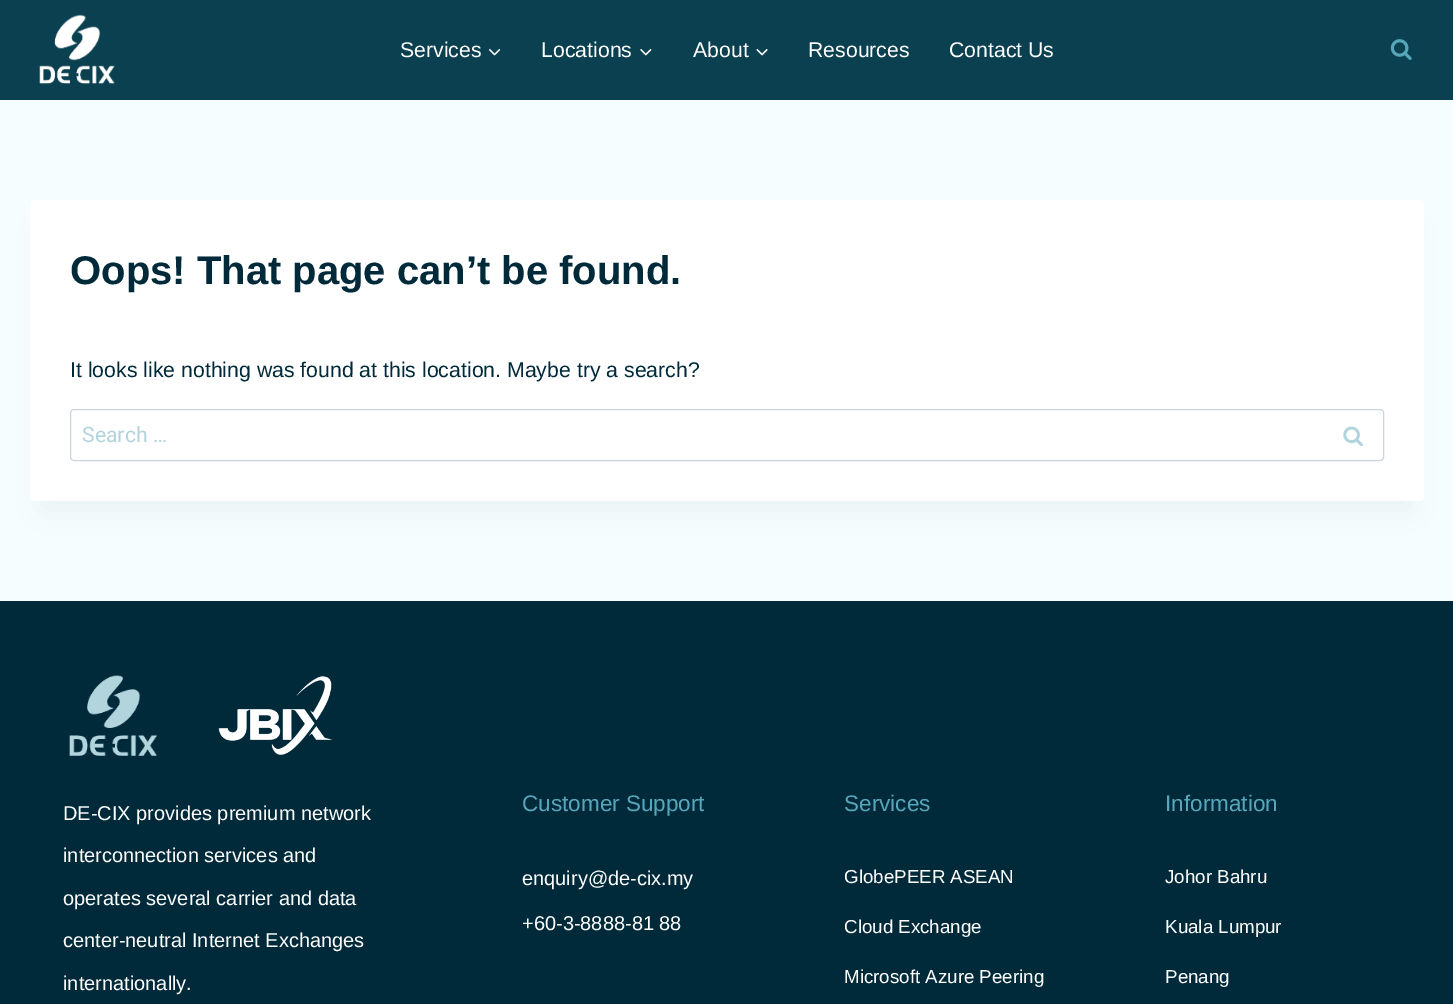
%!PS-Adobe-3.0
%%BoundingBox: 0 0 1453 1004
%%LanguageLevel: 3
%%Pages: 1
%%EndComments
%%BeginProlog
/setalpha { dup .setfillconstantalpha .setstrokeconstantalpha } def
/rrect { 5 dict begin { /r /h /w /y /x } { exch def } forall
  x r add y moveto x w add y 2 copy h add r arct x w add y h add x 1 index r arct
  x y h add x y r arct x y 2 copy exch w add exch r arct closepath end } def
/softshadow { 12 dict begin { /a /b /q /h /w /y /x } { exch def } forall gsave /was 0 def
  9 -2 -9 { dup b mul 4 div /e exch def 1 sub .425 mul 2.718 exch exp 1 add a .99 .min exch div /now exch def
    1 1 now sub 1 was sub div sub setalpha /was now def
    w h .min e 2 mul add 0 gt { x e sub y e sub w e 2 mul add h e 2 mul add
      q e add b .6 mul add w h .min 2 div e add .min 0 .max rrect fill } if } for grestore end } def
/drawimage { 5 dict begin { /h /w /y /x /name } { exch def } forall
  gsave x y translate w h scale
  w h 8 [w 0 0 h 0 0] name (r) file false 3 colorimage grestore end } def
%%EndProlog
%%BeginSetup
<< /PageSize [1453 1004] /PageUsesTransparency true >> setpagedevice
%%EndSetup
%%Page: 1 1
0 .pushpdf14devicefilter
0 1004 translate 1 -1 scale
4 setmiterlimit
0.965 0.992 1 setrgbcolor
0 0 1453 1004 rectfill
0.039 0.251 0.31 setrgbcolor
0 0 1453 100 rectfill
(images/1.raw) 39 14 76 71 drawimage
(images/2.raw) 489 49 12 7 drawimage
(images/3.raw) 640 49 12 7 drawimage
(images/4.raw) 756 49 12 7 drawimage
(images/5.raw) 1390 39 22 21 drawimage
0 setgray
43 231 1368 277 0 15.5 0.05 softshadow
1 setgray
30 200 1394 301 5 rrect fill
0.796 0.835 0.878 setrgbcolor
70.5 409.5 1313 51 3.5 rrect stroke
(images/6.raw) 1343 426 20 20 drawimage
0 0.165 0.227 setrgbcolor
0 601 1453 403 rectfill
(images/7.raw) 69 675 88 81 drawimage
(images/8.raw) 218 676 115 79 drawimage
/LiberationSans-Regular [21.25 0 0 -21.25 0 0] selectfont
1 setgray
400 57 moveto (Services) show
541 57 moveto (Locations) show
693 57 moveto (About) show
808 57 moveto (Resources) show
949 57 moveto (Contact Us) show
/LiberationSans-Bold [40 0 0 -40 0 0] selectfont
0 0.165 0.227 setrgbcolor
70 284 moveto (Oops! That page can’t be found.) show
/LiberationSans-Regular [21.25 0 0 -21.25 0 0] selectfont
70 377 moveto (It looks like nothing was found at this location. Maybe try a search?) show
/Roboto-Regular [21.25 0 0 -21.25 0 0] selectfont
0.698 0.831 0.867 setrgbcolor
82 442 moveto (Search …) show
/LiberationSans-Regular [20 0 0 -20 0 0] selectfont
1 setgray
63 820 moveto (DE-CIX provides premium network) show
63 862 moveto (interconnection services and) show
63 905 moveto (operates several carrier and data) show
63 947 moveto (center-neutral Internet Exchanges) show
63 990 moveto (internationally.) show
/LiberationSans-Regular [22.5 0 0 -22.5 0 0] selectfont
0.341 0.651 0.733 setrgbcolor
522 811 moveto (Customer Support) show
/LiberationSans-Regular [20 0 0 -20 0 0] selectfont
1 setgray
522 885 moveto (enquiry@de-cix.my) show
522 930 moveto (+60-3-8888-81 88) show
/LiberationSans-Regular [22.5 0 0 -22.5 0 0] selectfont
0.341 0.651 0.733 setrgbcolor
844 811 moveto (Services) show
/LiberationSans-Regular [18.75 0 0 -18.75 0 0] selectfont
1 setgray
844 883 moveto (GlobePEER ASEAN) show
844 933 moveto (Cloud Exchange) show
844 983 moveto (Microsoft Azure Peering) show
/LiberationSans-Regular [22.5 0 0 -22.5 0 0] selectfont
0.341 0.651 0.733 setrgbcolor
1165 811 moveto (Information) show
/LiberationSans-Regular [18.75 0 0 -18.75 0 0] selectfont
1 setgray
1165 883 moveto (Johor Bahru) show
1165 933 moveto (Kuala Lumpur) show
1165 983 moveto (Penang) show
.poppdf14devicefilter showpage
%%EOF
